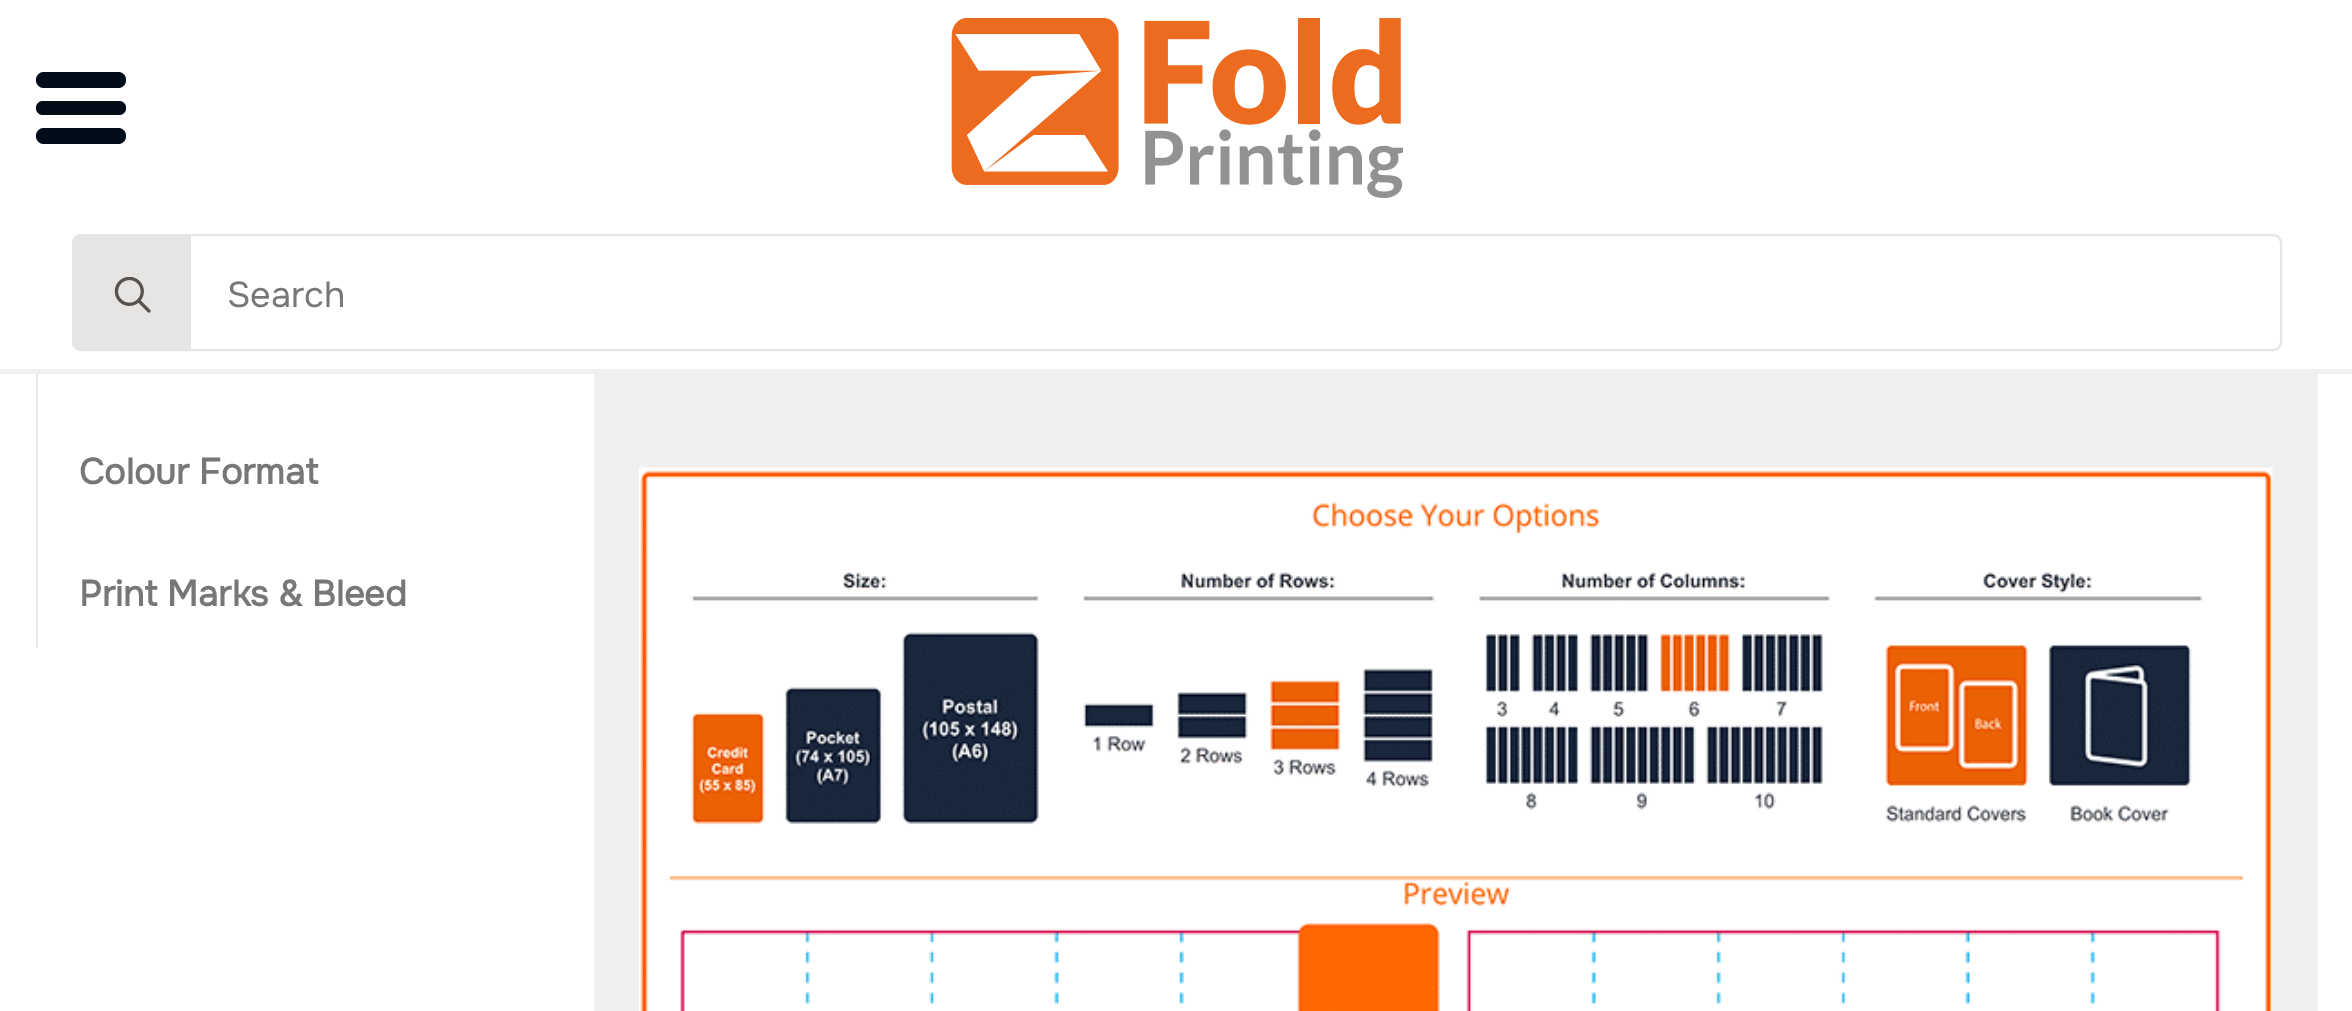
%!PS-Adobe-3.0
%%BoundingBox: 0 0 2352 1011
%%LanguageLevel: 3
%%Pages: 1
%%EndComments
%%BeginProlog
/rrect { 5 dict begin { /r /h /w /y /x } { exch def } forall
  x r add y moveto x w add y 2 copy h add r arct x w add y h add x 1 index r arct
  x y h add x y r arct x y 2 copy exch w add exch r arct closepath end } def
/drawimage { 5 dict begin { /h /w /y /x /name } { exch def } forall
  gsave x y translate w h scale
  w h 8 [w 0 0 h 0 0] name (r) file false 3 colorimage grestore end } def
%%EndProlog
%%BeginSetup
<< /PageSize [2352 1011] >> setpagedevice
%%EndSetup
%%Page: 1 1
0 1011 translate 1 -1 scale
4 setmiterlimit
1 setgray
0 0 2352 1011 rectfill
0.008 0.051 0.098 setrgbcolor
36 101 90 14 7 rrect fill
36 72 90 16 8 rrect fill
36 128 90 16 8 rrect fill
(images/1.raw) 951 18 453 180 drawimage
0.941 setgray
0 369 2352 5 rectfill
0.906 0.898 0.894 setrgbcolor
2 setlinewidth
73 235 2208 115 8 rrect stroke
newpath 81 236 moveto 191 236 lineto 191 349 lineto 81 349 lineto 77 349 74 346 74 342 curveto 74 243 lineto 74 239 77 236 81 236 curveto closepath fill
(images/2.raw) 114 277 37 36 drawimage
0.898 0.906 0.922 setrgbcolor
36 374 2 274 rectfill
0.941 setgray
594 374 1724 637 rectfill
(images/3.raw) 639 467 1634 544 drawimage
/Onest-Regular [36 0 0 -36 0 0] selectfont
0.467 setgray
227 307 moveto (Search) show
/Onest-Bold [36 0 0 -36 0 0] selectfont
79 484 moveto (Colour Format) show
79 606 moveto (Print Marks & Bleed) show
showpage
%%EOF
